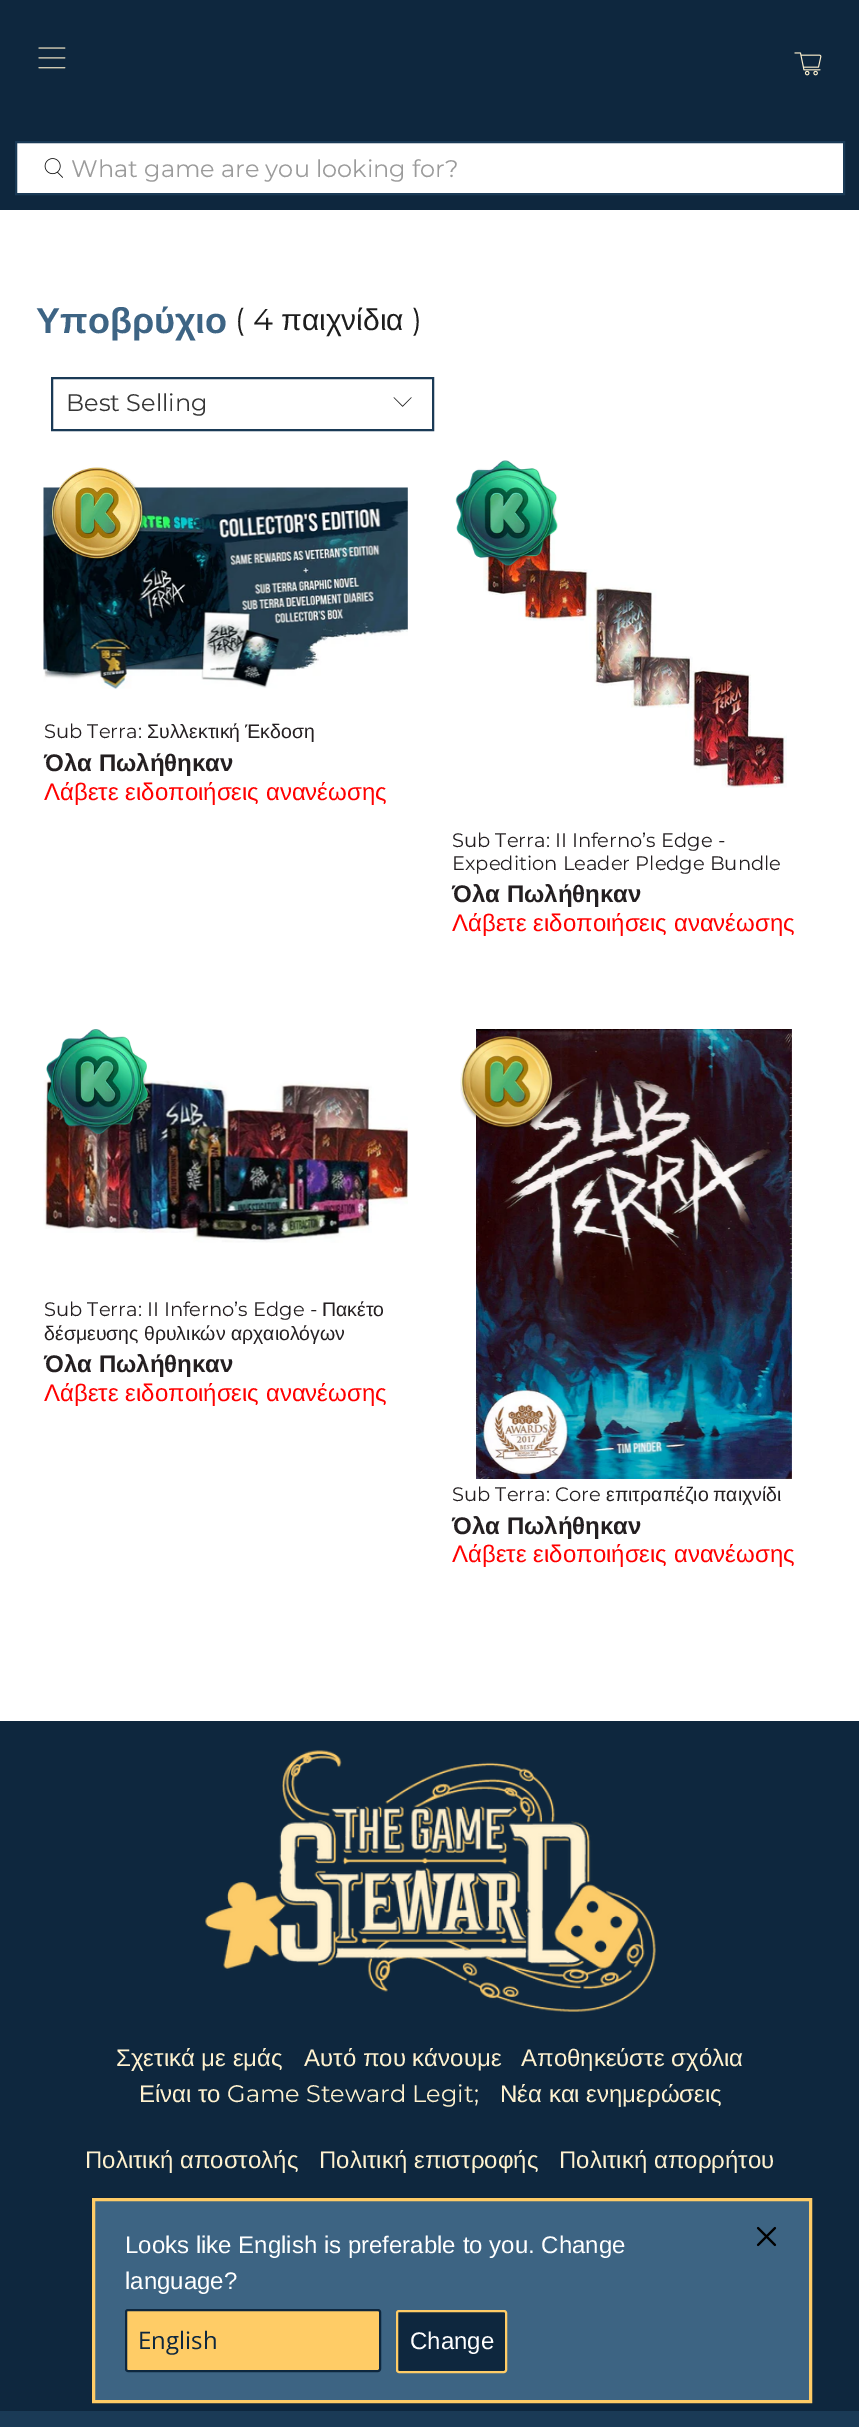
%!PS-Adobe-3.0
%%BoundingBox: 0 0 859 2427
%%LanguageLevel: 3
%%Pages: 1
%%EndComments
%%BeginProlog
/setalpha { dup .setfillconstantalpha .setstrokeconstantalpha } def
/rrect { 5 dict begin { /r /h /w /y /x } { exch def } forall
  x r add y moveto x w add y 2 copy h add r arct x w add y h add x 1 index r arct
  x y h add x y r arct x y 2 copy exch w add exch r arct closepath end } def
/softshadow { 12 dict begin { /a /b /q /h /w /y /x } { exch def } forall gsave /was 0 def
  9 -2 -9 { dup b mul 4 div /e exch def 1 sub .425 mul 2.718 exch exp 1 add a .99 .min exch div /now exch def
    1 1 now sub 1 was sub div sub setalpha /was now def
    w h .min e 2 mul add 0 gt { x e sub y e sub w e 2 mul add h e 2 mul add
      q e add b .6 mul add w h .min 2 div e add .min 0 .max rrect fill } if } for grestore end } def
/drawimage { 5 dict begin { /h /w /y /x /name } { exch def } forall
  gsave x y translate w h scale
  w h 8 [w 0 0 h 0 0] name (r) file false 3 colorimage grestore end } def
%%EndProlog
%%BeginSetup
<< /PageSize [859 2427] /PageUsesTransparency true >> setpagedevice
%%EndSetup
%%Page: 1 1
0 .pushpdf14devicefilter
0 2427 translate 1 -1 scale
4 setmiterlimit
1 setgray
0 0 859 2427 rectfill
0.055 0.153 0.243 setrgbcolor
0 0 859 210 rectfill
(images/1.raw) 38 47 28 22 drawimage
(images/2.raw) 794 52 28 24 drawimage
1 setgray
newpath 16 142 moveto 844 142 lineto 844 194 lineto 16 194 lineto closepath gsave fill grestore
0.102 0.227 0.337 setrgbcolor
2 setlinewidth
stroke
(images/3.raw) 44 158 19 20 drawimage
52 378 381 52 rectstroke
(images/4.raw) 393 397 19 10 drawimage
(images/6.raw) 43 487 365 202 drawimage
(images/5.raw) 51 467 95 95 drawimage
(images/8.raw) 483 496 304 292 drawimage
(images/7.raw) 455 460 103 106 drawimage
(images/10.raw) 43 1080 365 163 drawimage
(images/9.raw) 46 1029 102 105 drawimage
(images/11.raw) 476 1029 316 450 drawimage
(images/12.raw) 460 1036 95 94 drawimage
0 2411 859 16 rectfill
0.055 0.153 0.243 setrgbcolor
0 1721 859 690 rectfill
(images/13.raw) 205 1750 451 262 drawimage
0 setgray
92 2198 720 205 0 1 0.3 softshadow
0.239 0.392 0.514 setrgbcolor
newpath 93.5 2199.5 moveto 810.5 2199.5 lineto 810.5 2401.5 lineto 93.5 2401.5 lineto closepath gsave fill grestore
1 0.8 0.4 setrgbcolor
3 setlinewidth
stroke
126 2310 254 61 2 rrect gsave fill grestore
0.055 0.153 0.243 setrgbcolor
2 setlinewidth
stroke
397 2311 109 61 2 rrect gsave fill grestore
1 0.8 0.4 setrgbcolor
stroke
(images/14.raw) 756 2226 21 21 drawimage
/Montserrat-Regular [24 0 0 -24 0 0] selectfont
0.608 setgray
71 177 moveto (What game are you looking for?) show
/LiberationSans-Bold [36 0 0 -36 0 0] selectfont
0.239 0.392 0.518 setrgbcolor
36 333 moveto (Υποβρύχιο) show
/Montserrat-Regular [30 0 0 -30 0 0] selectfont
0.114 setgray
235 330 moveto (\( 4) show
/LiberationSans-Regular [30 0 0 -30 0 0] selectfont
281 330 moveto (παιχνίδια) show
/Montserrat-Regular [30 0 0 -30 0 0] selectfont
412 330 moveto (\)) show
/Montserrat-Regular [24 0 0 -24 0 0] selectfont
0.212 setgray
66 411 moveto (Best Selling) show
/Montserrat-Regular [19.5 0 0 -19.5 0 0] selectfont
0.141 0.122 0.129 setrgbcolor
44 738 moveto (Sub Terra:) show
/LiberationSans-Regular [19.5 0 0 -19.5 0 0] selectfont
147 738 moveto (Συλλεκτική) show
245 738 moveto (Έκδοση) show
/LiberationSans-Bold [24 0 0 -24 0 0] selectfont
44 771 moveto (Όλα Πωλήθηκαν) show
/LiberationSans-Regular [24 0 0 -24 0 0] selectfont
1 0 0 setrgbcolor
44 800 moveto (Λάβετε ειδοποιήσεις ανανέωσης) show
/Montserrat-Regular [19.5 0 0 -19.5 0 0] selectfont
0.141 0.122 0.129 setrgbcolor
452 847 moveto (Sub Terra: II Inferno’s Edge -) show
452 870 moveto (Expedition Leader Pledge Bundle) show
/LiberationSans-Bold [24 0 0 -24 0 0] selectfont
452 902 moveto (Όλα Πωλήθηκαν) show
/LiberationSans-Regular [24 0 0 -24 0 0] selectfont
1 0 0 setrgbcolor
452 931 moveto (Λάβετε ειδοποιήσεις ανανέωσης) show
/Montserrat-Regular [19.5 0 0 -19.5 0 0] selectfont
0.141 0.122 0.129 setrgbcolor
44 1316 moveto (Sub Terra: II Inferno’s Edge -) show
/LiberationSans-Regular [19.5 0 0 -19.5 0 0] selectfont
322 1316 moveto (Πακέτο) show
44 1340 moveto (δέσμευσης θρυλικών αρχαιολόγων) show
/LiberationSans-Bold [24 0 0 -24 0 0] selectfont
44 1372 moveto (Όλα Πωλήθηκαν) show
/LiberationSans-Regular [24 0 0 -24 0 0] selectfont
1 0 0 setrgbcolor
44 1401 moveto (Λάβετε ειδοποιήσεις ανανέωσης) show
/Montserrat-Regular [19.5 0 0 -19.5 0 0] selectfont
0.141 0.122 0.129 setrgbcolor
452 1501 moveto (Sub Terra: Core) show
/LiberationSans-Regular [19.5 0 0 -19.5 0 0] selectfont
606 1501 moveto (επιτραπέζιο) show
713 1501 moveto (παιχνίδι) show
/LiberationSans-Bold [24 0 0 -24 0 0] selectfont
452 1534 moveto (Όλα Πωλήθηκαν) show
/LiberationSans-Regular [24 0 0 -24 0 0] selectfont
1 0 0 setrgbcolor
452 1562 moveto (Λάβετε ειδοποιήσεις ανανέωσης) show
1 0.949 0.812 setrgbcolor
116 2066 moveto (Σχετικά με εμάς) show
304 2066 moveto (Αυτό που κάνουμε) show
521 2066 moveto (Αποθηκεύστε σχόλια) show
139 2102 moveto (Είναι) show
198 2102 moveto (το) show
/Montserrat-Regular [24 0 0 -24 0 0] selectfont
227 2102 moveto (Game Steward Legit;) show
/LiberationSans-Regular [24 0 0 -24 0 0] selectfont
500 2102 moveto (Νέα και ενημερώσεις) show
85 2168 moveto (Πολιτική αποστολής) show
319 2168 moveto (Πολιτική επιστροφής) show
559 2168 moveto (Πολιτική απορρήτου) show
1 setgray
125 2253 moveto (Looks like English is preferable to you. Change) show
125 2289 moveto (language?) show
/OpenSans-Regular [24 0 0 -24 0 0] selectfont
0.055 0.153 0.243 setrgbcolor
138 2349 moveto (English) show
/LiberationSans-Regular [24 0 0 -24 0 0] selectfont
1 setgray
410 2349 moveto (Change) show
.poppdf14devicefilter showpage
%%EOF
